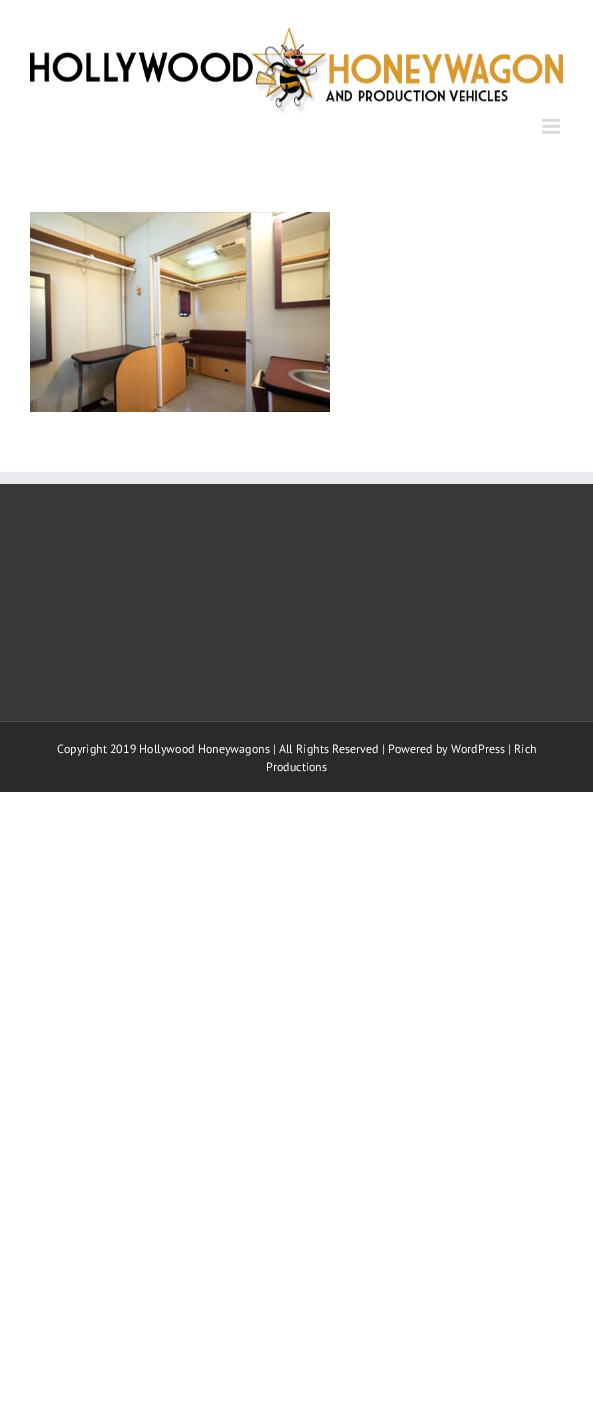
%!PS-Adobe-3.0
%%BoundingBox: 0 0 593 1410
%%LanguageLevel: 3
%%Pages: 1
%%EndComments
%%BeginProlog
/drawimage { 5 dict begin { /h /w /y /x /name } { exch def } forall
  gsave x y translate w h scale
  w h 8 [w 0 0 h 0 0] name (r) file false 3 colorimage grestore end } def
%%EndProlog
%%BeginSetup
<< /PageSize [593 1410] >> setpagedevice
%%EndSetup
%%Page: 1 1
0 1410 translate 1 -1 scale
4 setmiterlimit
1 setgray
0 0 593 1410 rectfill
(images/1.raw) 30 26 533 88 drawimage
(images/2.raw) 542 118 18 16 drawimage
(images/3.raw) 30 212 300 200 drawimage
0.212 0.22 0.224 setrgbcolor
0 484 593 237 rectfill
0.914 0.918 0.933 setrgbcolor
0 472 593 12 rectfill
0.157 0.165 0.169 setrgbcolor
0 722 593 70 rectfill
0.294 0.298 0.302 setrgbcolor
0 721 593 1 rectfill
/PTSans-Regular [12 0 0 -12 0 0] selectfont
1 setgray
57 753 moveto (Copyright 2019 Hollywood Honeywagons | All Rights Reserved | Powered by WordPress | Rich) show
266 771 moveto (Productions) show
showpage
%%EOF
